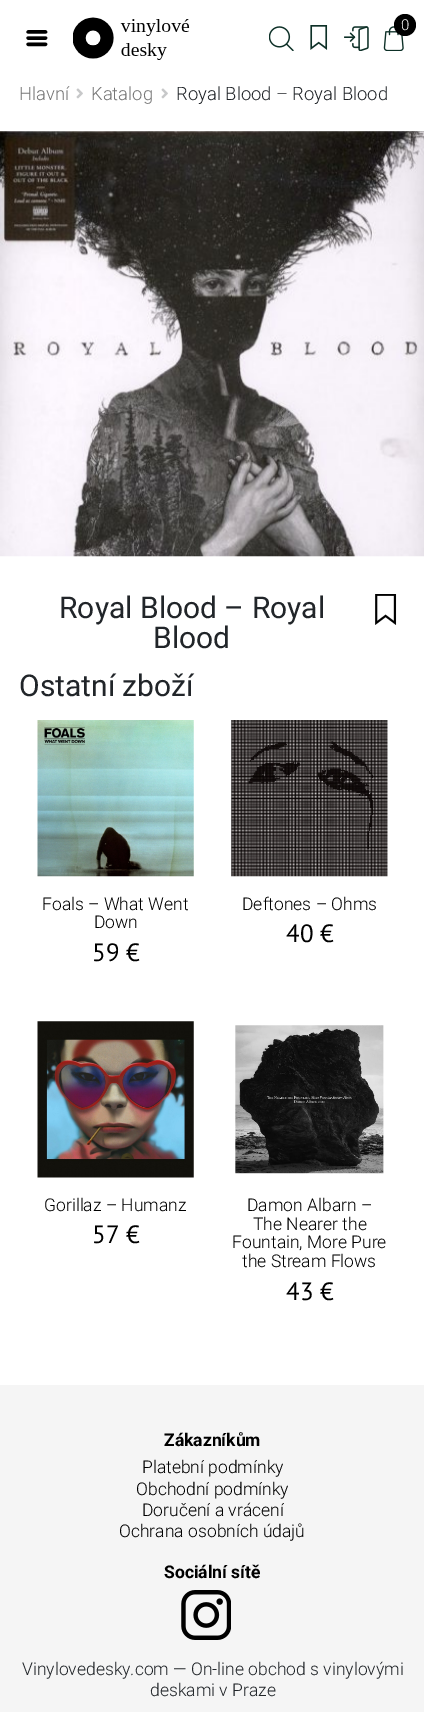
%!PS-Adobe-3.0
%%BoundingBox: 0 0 424 1712
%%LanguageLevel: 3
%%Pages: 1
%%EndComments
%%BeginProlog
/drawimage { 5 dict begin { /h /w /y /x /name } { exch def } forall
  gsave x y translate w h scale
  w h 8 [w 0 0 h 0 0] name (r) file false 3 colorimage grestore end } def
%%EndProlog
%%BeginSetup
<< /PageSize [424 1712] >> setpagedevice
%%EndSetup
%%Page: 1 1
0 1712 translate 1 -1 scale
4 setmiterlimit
1 setgray
0 0 424 1712 rectfill
(images/1.raw) 73 17 117 43 drawimage
(images/2.raw) 269 26 25 25 drawimage
(images/3.raw) 310 25 18 25 drawimage
(images/4.raw) 344 26 25 25 drawimage
(images/5.raw) 383 26 21 25 drawimage
0 setgray
newpath 405 25 11 0 360 arc closepath fill
(images/6.raw) 26 30 22 17 drawimage
(images/7.raw) 76 88 7 11 drawimage
(images/7.raw) 161 88 7 11 drawimage
(images/8.raw) 0 131 424 426 drawimage
(images/9.raw) 375 594 22 31 drawimage
(images/10.raw) 37 720 157 157 drawimage
(images/11.raw) 231 720 157 157 drawimage
(images/12.raw) 37 1021 157 157 drawimage
(images/13.raw) 235 1025 149 149 drawimage
0.961 setgray
0 1385 424 327 rectfill
(images/14.raw) 181 1590 50 50 drawimage
/Roboto-Light [15 0 0 -15 0 0] selectfont
1 setgray
401 30 moveto (0) show
/Roboto-Light [18.4 0 0 -18.4 0 0] selectfont
0.463 setgray
19 100 moveto (Hlavní) show
91 100 moveto (Katalog) show
0.129 0.145 0.161 setrgbcolor
176 100 moveto (Royal Blood – Royal Blood) show
/Roboto-Regular [30 0 0 -30 0 0] selectfont
59 618 moveto (Royal Blood – Royal) show
153 648 moveto (Blood) show
19 696 moveto (Ostatní zboží) show
/Roboto-Light [17.5 0 0 -17.5 0 0] selectfont
0 setgray
42 910 moveto (Foals – What Went) show
94 928 moveto (Down) show
/PTSans-Regular [25 0 0 -25 0 0] selectfont
92 961 moveto (59 €) show
/Roboto-Light [17.5 0 0 -17.5 0 0] selectfont
242 910 moveto (Deftones – Ohms) show
/PTSans-Regular [25 0 0 -25 0 0] selectfont
286 942 moveto (40 €) show
/Roboto-Light [17.5 0 0 -17.5 0 0] selectfont
44 1211 moveto (Gorillaz – Humanz) show
/PTSans-Regular [25 0 0 -25 0 0] selectfont
92 1243 moveto (57 €) show
/Roboto-Light [17.5 0 0 -17.5 0 0] selectfont
247 1211 moveto (Damon Albarn –) show
253 1230 moveto (The Nearer the) show
232 1248 moveto (Fountain, More Pure) show
242 1267 moveto (the Stream Flows) show
/PTSans-Regular [25 0 0 -25 0 0] selectfont
286 1300 moveto (43 €) show
/Roboto-Bold [17.5 0 0 -17.5 0 0] selectfont
164 1446 moveto (Zákazníkům) show
/Roboto-Light [17.5 0 0 -17.5 0 0] selectfont
142 1473 moveto (Platební podmínky) show
136 1495 moveto (Obchodní podmínky) show
142 1516 moveto (Doručení a vrácení) show
119 1537 moveto (Ochrana osobních údajů) show
/Roboto-Bold [17.5 0 0 -17.5 0 0] selectfont
164 1578 moveto (Sociální sítě) show
/Roboto-Light [17.5 0 0 -17.5 0 0] selectfont
0.129 0.145 0.161 setrgbcolor
22 1675 moveto (Vinylovedesky.com — On-line obchod s vinylovými) show
150 1696 moveto (deskami v Praze) show
showpage
%%EOF
